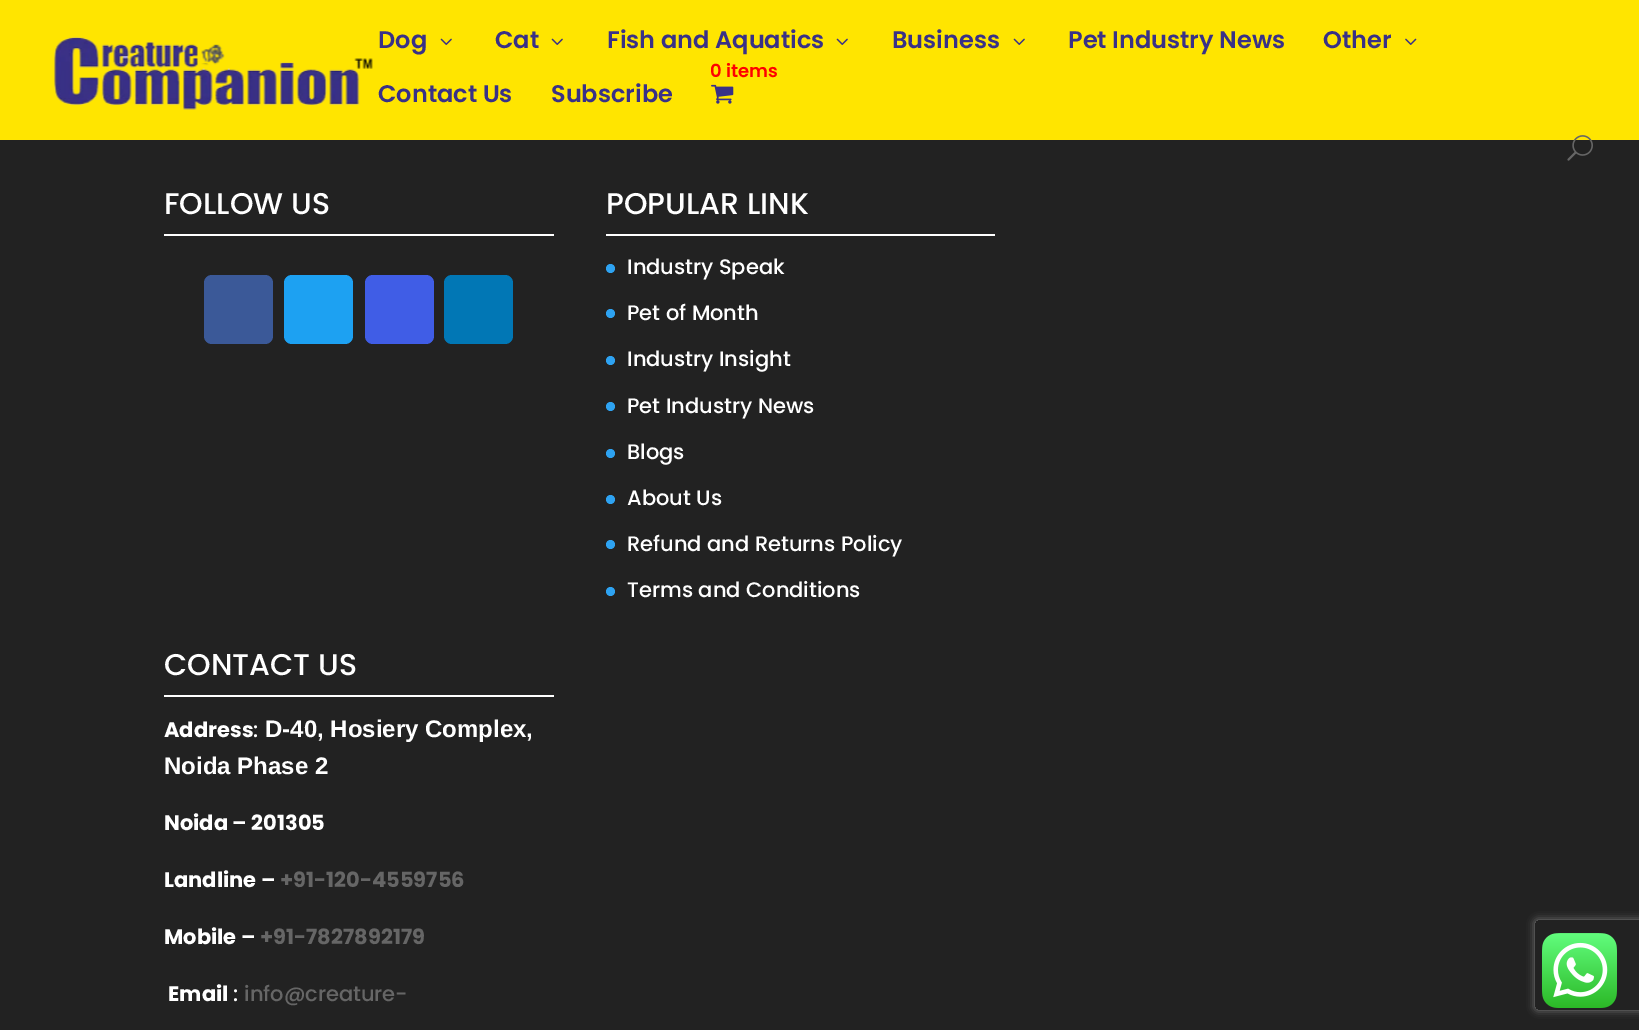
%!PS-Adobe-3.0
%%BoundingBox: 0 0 1639 1030
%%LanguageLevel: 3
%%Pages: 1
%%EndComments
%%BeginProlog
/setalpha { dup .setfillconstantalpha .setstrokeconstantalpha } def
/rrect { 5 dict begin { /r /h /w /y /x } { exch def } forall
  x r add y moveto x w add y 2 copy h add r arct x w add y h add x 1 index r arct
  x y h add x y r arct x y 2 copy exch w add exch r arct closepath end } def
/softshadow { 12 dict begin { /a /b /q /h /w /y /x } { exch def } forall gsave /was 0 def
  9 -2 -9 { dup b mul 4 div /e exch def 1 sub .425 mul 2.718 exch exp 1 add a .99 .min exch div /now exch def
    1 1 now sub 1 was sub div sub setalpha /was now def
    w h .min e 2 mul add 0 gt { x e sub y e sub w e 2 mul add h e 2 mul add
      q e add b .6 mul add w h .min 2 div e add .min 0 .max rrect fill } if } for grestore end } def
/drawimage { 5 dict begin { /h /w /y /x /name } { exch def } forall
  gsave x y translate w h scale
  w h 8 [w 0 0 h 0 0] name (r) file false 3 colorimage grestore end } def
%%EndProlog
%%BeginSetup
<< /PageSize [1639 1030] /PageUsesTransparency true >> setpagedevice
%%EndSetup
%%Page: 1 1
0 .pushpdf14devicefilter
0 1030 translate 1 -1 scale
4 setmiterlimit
0.133 setgray
0 0 1639 1030 rectfill
1 0.898 0 setrgbcolor
0 0 1639 140 rectfill
(images/1.raw) 54 36 319 74 drawimage
(images/2.raw) 440 38 12 7 drawimage
(images/2.raw) 551 38 12 7 drawimage
(images/2.raw) 836 38 12 7 drawimage
(images/2.raw) 1013 38 12 7 drawimage
(images/3.raw) 1405 38 12 7 drawimage
(images/4.raw) 711 84 23 20 drawimage
(images/5.raw) 1567 135 26 26 drawimage
1 setgray
164 234 390 2 rectfill
0.231 0.349 0.596 setrgbcolor
204 275 69 69 8 rrect fill
0.114 0.631 0.949 setrgbcolor
284 275 69 69 8 rrect fill
0.251 0.365 0.902 setrgbcolor
365 275 69 69 8 rrect fill
0.004 0.467 0.71 setrgbcolor
444 275 69 69 8 rrect fill
1 setgray
606 234 389 2 rectfill
0.18 0.639 0.949 setrgbcolor
newpath 610.5 268.5 4.5 0 360 arc closepath fill
newpath 610.5 313.5 4.5 0 360 arc closepath fill
newpath 610.5 360.5 4.5 0 360 arc closepath fill
newpath 610.5 406.5 4.5 0 360 arc closepath fill
newpath 610.5 453.5 4.5 0 360 arc closepath fill
newpath 610.5 499.5 4.5 0 360 arc closepath fill
newpath 610.5 544.5 4.5 0 360 arc closepath fill
newpath 610.5 591.5 4.5 0 360 arc closepath fill
1 setgray
164 695 390 2 rectfill
gsave
newpath 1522 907 moveto 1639 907 lineto 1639 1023 lineto 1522 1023 lineto closepath 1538 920 moveto 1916 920 lineto 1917.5 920 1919 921.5 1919 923 curveto 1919 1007 lineto 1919 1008.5 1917.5 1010 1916 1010 curveto 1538 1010 lineto 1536.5 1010 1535 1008.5 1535 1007 curveto 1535 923 lineto 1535 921.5 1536.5 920 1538 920 curveto closepath eoclip newpath
0.502 setgray
1535 920 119 90 3 4 1 softshadow
grestore
(images/6.raw) 1542 933 75 75 drawimage
/Poppins-SemiBold [24 0 0 -24 0 0] selectfont
0.224 0.192 0.529 setrgbcolor
378 48 moveto (Dog) show
495 48 moveto (Cat) show
607 48 moveto (Fish and Aquatics) show
892 48 moveto (Business) show
1068 48 moveto (Pet Industry News) show
1323 48 moveto (Other) show
/Poppins-SemiBold [18 0 0 -18 0 0] selectfont
1 0 0 setrgbcolor
710 77 moveto (0 items) show
/Poppins-SemiBold [24 0 0 -24 0 0] selectfont
0.224 0.192 0.529 setrgbcolor
378 102 moveto (Contact Us) show
551 102 moveto (Subscribe) show
/Poppins-Medium [30 0 0 -30 0 0] selectfont
1 setgray
164 214 moveto (FOLLOW US) show
606 214 moveto (POPULAR LINK) show
/Poppins-Medium [21 0 0 -21 0 0] selectfont
627 274 moveto (Industry Speak) show
627 320 moveto (Pet of Month) show
627 366 moveto (Industry Insight) show
627 413 moveto (Pet Industry News) show
627 459 moveto (Blogs) show
627 505 moveto (About Us) show
627 551 moveto (Refund and Returns Policy) show
627 597 moveto (Terms and Conditions) show
/Poppins-Medium [30 0 0 -30 0 0] selectfont
164 675 moveto (CONTACT US) show
/Poppins-Bold [21 0 0 -21 0 0] selectfont
164 737 moveto (Address) show
/Poppins-Medium [21 0 0 -21 0 0] selectfont
253 737 moveto (:) show
/LiberationSans-Bold [24 0 0 -24 0 0] selectfont
265 737 moveto (D-40, Hosiery Complex,) show
164 774 moveto (Noida Phase 2) show
/Poppins-Bold [21 0 0 -21 0 0] selectfont
164 830 moveto (Noida – 201305) show
164 887 moveto (Landline –) show
0.4 setgray
280 887 moveto (+91-120-4559756) show
1 setgray
164 944 moveto (Mobile –) show
0.4 setgray
260 944 moveto (+91-7827892179) show
1 setgray
168 1001 moveto (Email) show
/Poppins-Medium [21 0 0 -21 0 0] selectfont
233 1001 moveto (:) show
0.4 setgray
244 1001 moveto (info@creature-) show
.poppdf14devicefilter showpage
%%EOF
